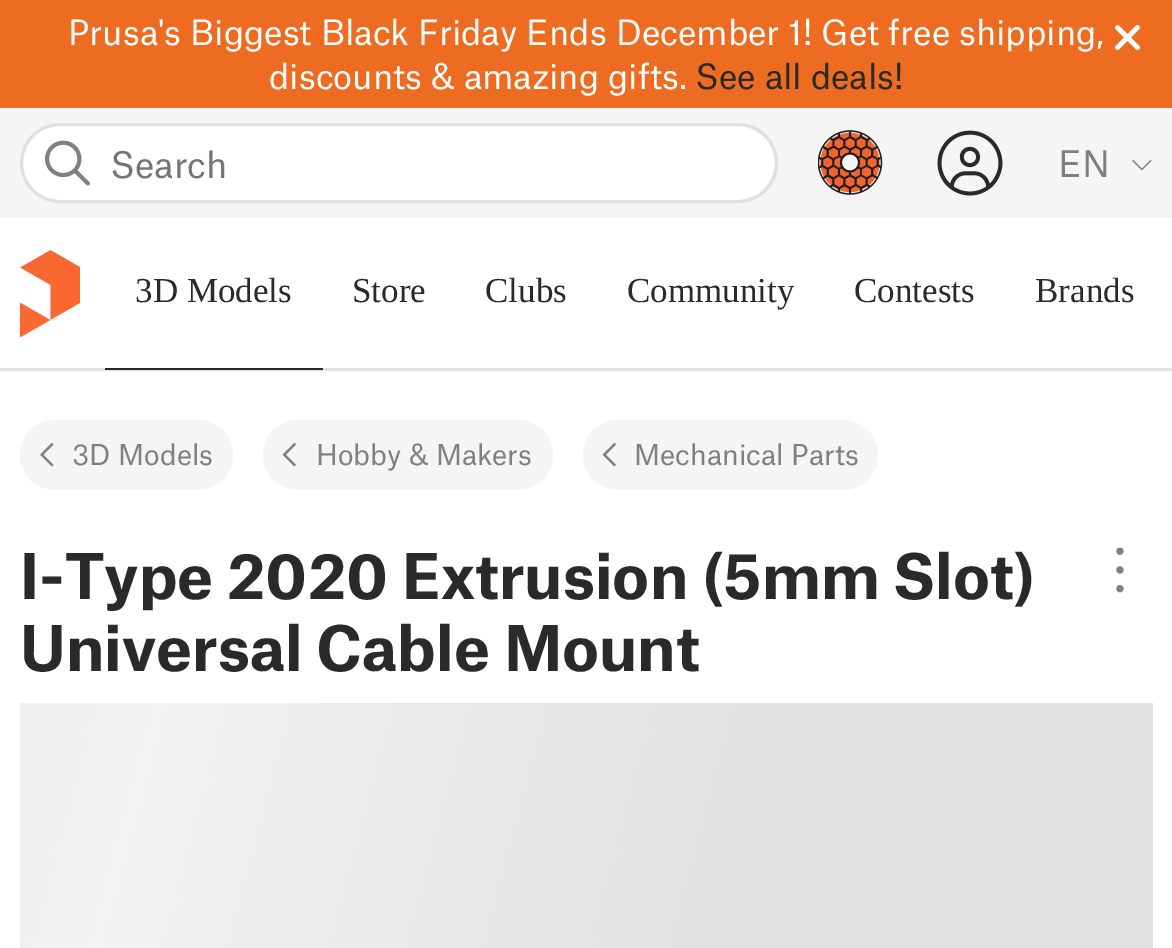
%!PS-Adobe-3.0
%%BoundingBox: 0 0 1172 948
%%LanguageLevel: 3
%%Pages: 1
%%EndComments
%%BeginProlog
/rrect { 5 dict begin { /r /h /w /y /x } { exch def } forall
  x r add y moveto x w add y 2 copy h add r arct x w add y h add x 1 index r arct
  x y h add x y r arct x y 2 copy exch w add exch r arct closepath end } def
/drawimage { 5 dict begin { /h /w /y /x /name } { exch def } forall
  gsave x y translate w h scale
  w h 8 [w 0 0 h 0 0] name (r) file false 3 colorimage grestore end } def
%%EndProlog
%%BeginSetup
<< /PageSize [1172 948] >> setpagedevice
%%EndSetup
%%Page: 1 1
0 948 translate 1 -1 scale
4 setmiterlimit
1 setgray
0 0 1172 948 rectfill
0.929 0.424 0.129 setrgbcolor
0 0 1172 108 rectfill
(images/1.raw) 1114 24 26 26 drawimage
0.961 setgray
0 108 1172 110 rectfill
1 setgray
21.5 124.5 755 77 38.5 rrect gsave fill grestore
0.878 setgray
3 setlinewidth
stroke
(images/2.raw) 45 140 45 46 drawimage
(images/3.raw) 818 130 65 65 drawimage
(images/4.raw) 937 130 66 66 drawimage
(images/5.raw) 1132 159 20 12 drawimage
0 368 1172 3 rectfill
(images/6.raw) 20 250 60 88 drawimage
0.165 setgray
105 368 218 2 rectfill
0.961 setgray
20 420 213 70 35 rrect fill
(images/7.raw) 40 443 14 24 drawimage
263 420 290 70 35 rrect fill
(images/8.raw) 282 443 14 24 drawimage
583 420 295 70 35 rrect fill
(images/8.raw) 602 443 14 24 drawimage
(images/9.raw) 1116 547 8 46 drawimage
gsave newpath 20 703 moveto 1153 703 lineto 1153 948 lineto 20 948 lineto closepath clip newpath
<< /ShadingType 2 /ColorSpace /DeviceRGB /Coords [-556 821 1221 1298] /Extend [true true] /Function << /FunctionType 3 /Domain [0 1] /Functions [<< /FunctionType 2 /Domain [0 1] /C0 [0.875 0.878 0.878] /C1 [0.949 0.953 0.961] /N 1 >> << /FunctionType 2 /Domain [0 1] /C0 [0.949 0.953 0.961] /C1 [0.875 0.878 0.878] /N 1 >> << /FunctionType 2 /Domain [0 1] /C0 [0.875 0.878 0.878] /C1 [0.875 0.878 0.878] /N 1 >>] /Bounds [0.36 0.71] /Encode [0 1 0 1 0 1] >> >> shfill grestore
/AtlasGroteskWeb-Regular [33.4 0 0 -33.4 0 0] selectfont
1 setgray
68 45 moveto (Prusa's Biggest Black Friday Ends December 1! Get free shipping,) show
269 89 moveto (discounts & amazing gifts.) show
0.165 setgray
695 89 moveto (See all deals!) show
/AtlasGroteskWeb-Regular [35 0 0 -35 0 0] selectfont
0.459 setgray
110 178 moveto (Search) show
0.502 setgray
1058 177 moveto (EN) show
/LiberationSerif-Regular [35 0 0 -35 0 0] selectfont
0.165 setgray
135 302 moveto (3D Models) show
352 302 moveto (Store) show
485 302 moveto (Clubs) show
627 302 moveto (Community) show
854 302 moveto (Contests) show
1035 302 moveto (Brands) show
/AtlasGroteskWeb-Regular [27.5 0 0 -27.5 0 0] selectfont
0.502 setgray
72 465 moveto (3D Models) show
316 465 moveto (Hobby & Makers) show
634 465 moveto (Mechanical Parts) show
/AtlasGroteskWeb-Bold [60 0 0 -60 0 0] selectfont
0.165 setgray
20 599 moveto (I-Type 2020 Extrusion \(5mm Slot\)) show
20 671 moveto (Universal Cable Mount) show
showpage
%%EOF
